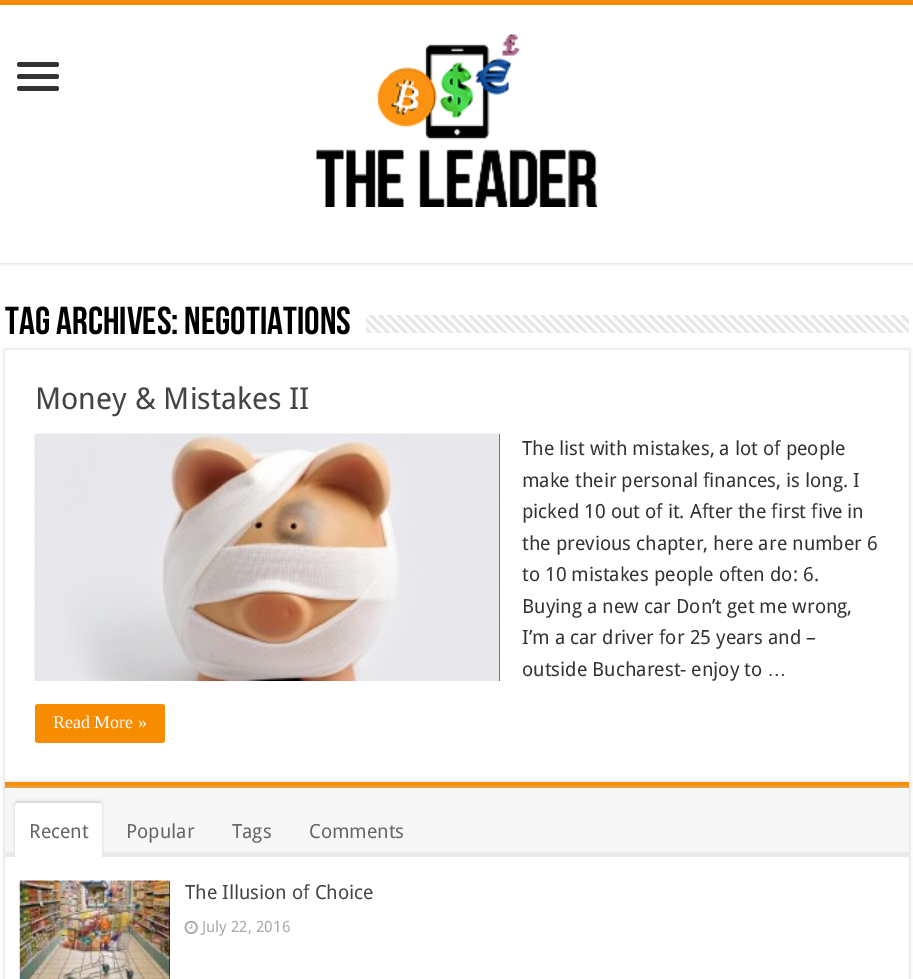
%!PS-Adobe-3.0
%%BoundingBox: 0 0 913 979
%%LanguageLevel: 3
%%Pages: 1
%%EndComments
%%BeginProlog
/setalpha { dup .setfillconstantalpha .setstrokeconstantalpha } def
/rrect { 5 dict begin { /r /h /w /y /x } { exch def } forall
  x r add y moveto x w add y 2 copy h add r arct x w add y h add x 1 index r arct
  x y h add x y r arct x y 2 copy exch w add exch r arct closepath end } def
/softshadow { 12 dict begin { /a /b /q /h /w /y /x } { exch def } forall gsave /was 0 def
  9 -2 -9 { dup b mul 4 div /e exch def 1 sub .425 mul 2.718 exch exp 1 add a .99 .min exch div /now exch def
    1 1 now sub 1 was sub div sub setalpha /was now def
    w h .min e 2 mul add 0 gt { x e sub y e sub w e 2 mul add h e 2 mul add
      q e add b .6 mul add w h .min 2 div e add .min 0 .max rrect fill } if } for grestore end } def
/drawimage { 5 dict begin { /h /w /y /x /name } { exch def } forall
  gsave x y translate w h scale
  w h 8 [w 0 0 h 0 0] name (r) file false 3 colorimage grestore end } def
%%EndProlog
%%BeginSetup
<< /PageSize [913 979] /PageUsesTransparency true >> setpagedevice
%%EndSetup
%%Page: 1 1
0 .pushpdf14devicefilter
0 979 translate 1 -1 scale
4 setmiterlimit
1 setgray
0 0 913 979 rectfill
0.792 setgray
0 0 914 263 0 2 1 softshadow
1 setgray
0 5 913 258 rectfill
0.973 0.549 0 setrgbcolor
0 0 913 5 rectfill
0.2 setgray
17 62 42 5 2.5 rrect fill
17 74 42 5 2.5 rrect fill
17 86 42 5 2.5 rrect fill
(images/1.raw) 316 34 281 173 drawimage
(images/2.raw) 366 315 543 18 drawimage
0.792 setgray
5 350 904 438 0 2 1 softshadow
1 setgray
5 350 904 430 rectfill
0.973 0.549 0 setrgbcolor
5 782 904 6 rectfill
0.949 setgray
5 780 904 2 rectfill
0 setgray
499 434 1 247 rectfill
(images/3.raw) 34 433 466 248 drawimage
0.973 0.549 0 setrgbcolor
35 704 130 39 3 rrect fill
0.792 setgray
5 788 904 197 0 2 1 softshadow
1 setgray
5 857 904 122 rectfill
0.969 setgray
5 788 904 64 rectfill
0.918 setgray
5 852 904 5 rectfill
0.831 setgray
15 801 87 54 3 1.5 1 softshadow
1 setgray
newpath 18 803 moveto 99 803 lineto 100.5 803 102 804.5 102 806 curveto 102 857 lineto 15 857 lineto 15 806 lineto 15 804.5 16.5 803 18 803 curveto closepath fill
0 setgray
169 881 1 98 rectfill
(images/4.raw) 19 880 151 99 drawimage
(images/5.raw) 184 920 14 15 drawimage
gsave
5 300 904 50 rectclip
/BebasNeue-Bold [39 0 0 -39 0 0] selectfont
5 334 moveto (Tag Archives:) show
grestore
/BebasNeue-Bold [39 0 0 -39 0 0] selectfont
184 334 moveto (negotiations) show
/DroidSans-Regular [30 0 0 -30 0 0] selectfont
0.267 setgray
35 409 moveto (Money & Mistakes II) show
/DroidSans-Regular [19.5 0 0 -19.5 0 0] selectfont
0.2 setgray
522 455 moveto (The list with mistakes, a lot of people) show
522 487 moveto (make their personal finances, is long. I) show
522 518 moveto (picked 10 out of it. After the first five in) show
522 550 moveto (the previous chapter, here are number 6) show
522 581 moveto (to 10 mistakes people often do: 6.) show
522 613 moveto (Buying a new car Don’t get me wrong,) show
522 644 moveto (I’m a car driver for 25 years and –) show
522 676 moveto (outside Bucharest- enjoy to) show
/LiberationSans-Regular [19.5 0 0 -19.5 0 0] selectfont
767 676 moveto (…) show
/LiberationSerif-Regular [18 0 0 -18 0 0] selectfont
1 setgray
53 728 moveto (Read More ») show
/DroidSans-Regular [19.5 0 0 -19.5 0 0] selectfont
0.4 setgray
29 838 moveto (Recent) show
126 838 moveto (Popular) show
232 838 moveto (Tags) show
309 838 moveto (Comments) show
0.267 setgray
185 899 moveto (The Illusion of Choice) show
/DroidSans-Regular [15.5 0 0 -15.5 0 0] selectfont
0.667 setgray
202 932 moveto (July 22, 2016) show
.poppdf14devicefilter showpage
%%EOF
